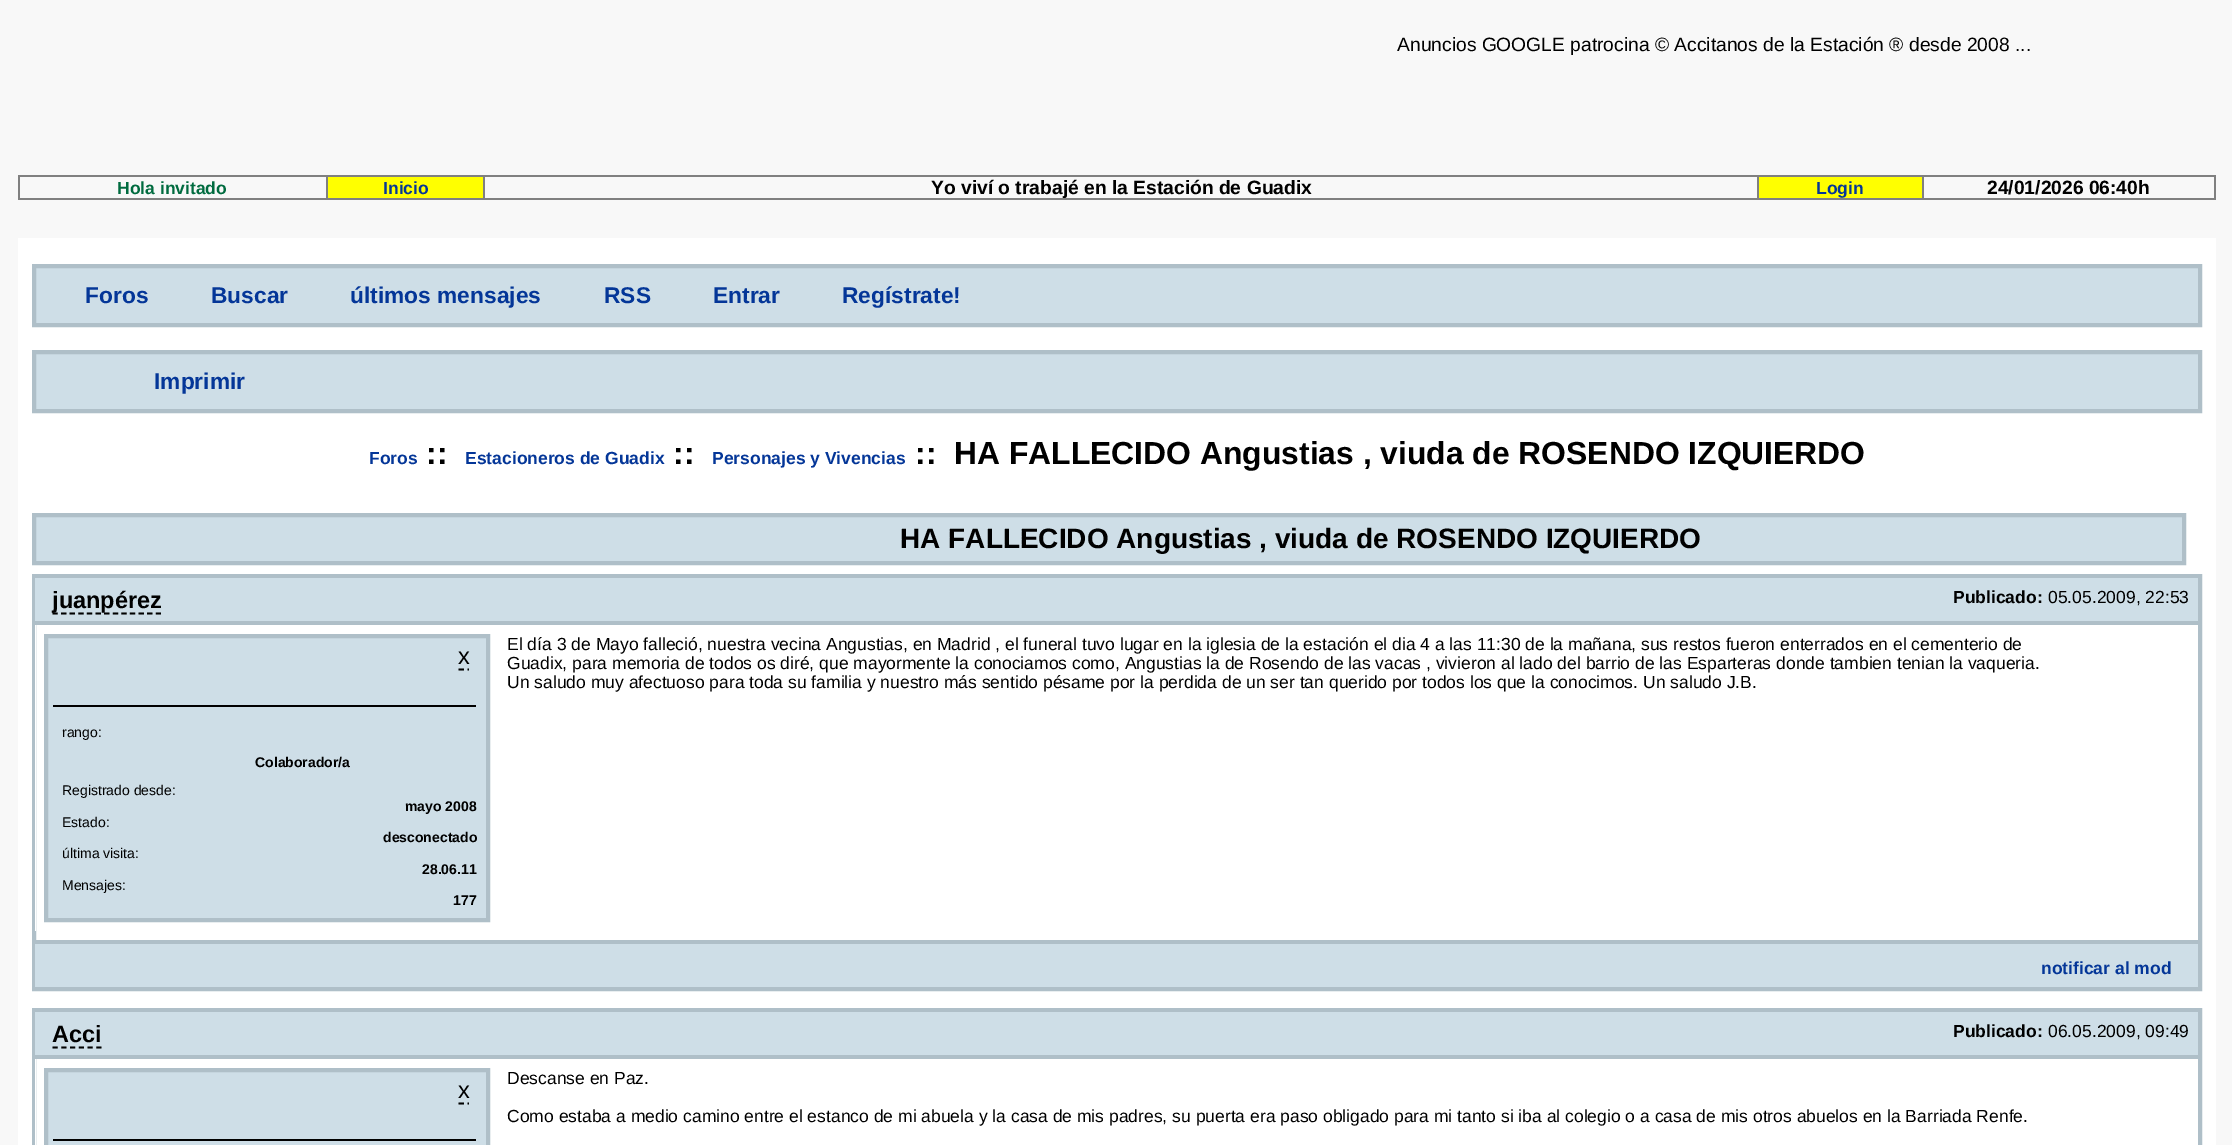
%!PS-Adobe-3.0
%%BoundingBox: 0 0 2232 1145
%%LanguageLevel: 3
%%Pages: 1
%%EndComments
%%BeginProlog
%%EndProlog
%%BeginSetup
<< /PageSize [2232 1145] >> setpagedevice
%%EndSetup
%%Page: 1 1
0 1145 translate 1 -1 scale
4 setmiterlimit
0.973 setgray
0 0 2232 1145 rectfill
0.502 setgray
18 175 2198 2 rectfill
2214 175 2 25 rectfill
18 198 2198 2 rectfill
18 175 2 25 rectfill
1 1 0 setrgbcolor
328 177 155 21 rectfill
0.502 setgray
326 175 2 25 rectfill
483 175 2 25 rectfill
1 1 0 setrgbcolor
1759 177 163 21 rectfill
0.502 setgray
1757 175 2 25 rectfill
1922 175 2 25 rectfill
1 setgray
18 238 2198 907 rectfill
0.808 0.871 0.906 setrgbcolor
newpath 34 266 moveto 2200 266 lineto 2200 325 lineto 34 325 lineto closepath gsave fill grestore
0.686 0.749 0.784 setrgbcolor
4 setlinewidth
stroke
0.808 0.871 0.906 setrgbcolor
newpath 34 352 moveto 2200 352 lineto 2200 411 lineto 34 411 lineto closepath gsave fill grestore
0.686 0.749 0.784 setrgbcolor
stroke
0.808 0.871 0.906 setrgbcolor
newpath 34 515 moveto 2184 515 lineto 2184 563 lineto 34 563 lineto closepath gsave fill grestore
0.686 0.749 0.784 setrgbcolor
stroke
34 576 2166 413 rectstroke
0.808 0.871 0.906 setrgbcolor
35 578 2163 43 rectfill
0.686 0.749 0.784 setrgbcolor
35 621 2163 4 rectfill
0 setgray
1.8 setlinewidth
[5.25 3.36] 0 setdash
newpath 52.5 613.5 moveto 161 613.5 lineto stroke
1 setgray
35 625 1 306 rectfill
0.808 0.871 0.906 setrgbcolor
newpath 46 636 moveto 488 636 lineto 488 920 lineto 46 920 lineto closepath gsave fill grestore
0.686 0.749 0.784 setrgbcolor
4 setlinewidth
[] 0 setdash
stroke
0 setgray
1.8 setlinewidth
newpath 458.5 669.5 moveto 464 669.5 lineto 467.5 669.5 moveto 469 669.5 lineto stroke
53 705 423 2 rectfill
0.808 0.871 0.906 setrgbcolor
35 944 2163 43 rectfill
0.686 0.749 0.784 setrgbcolor
35 940 2163 4 rectfill
4 setlinewidth
34 1010 2166 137 rectstroke
0.808 0.871 0.906 setrgbcolor
35 1012 2163 43 rectfill
0.686 0.749 0.784 setrgbcolor
35 1055 2163 4 rectfill
0 setgray
1.8 setlinewidth
[5.25 3.5] 0 setdash
newpath 52.5 1047.5 moveto 101.5 1047.5 lineto stroke
1 setgray
35 1059 1 86 rectfill
0.808 0.871 0.906 setrgbcolor
newpath 46 1070 moveto 488 1070 lineto 488 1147 lineto 46 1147 lineto closepath gsave fill grestore
0.686 0.749 0.784 setrgbcolor
4 setlinewidth
[] 0 setdash
stroke
0 setgray
1.8 setlinewidth
newpath 458.5 1103.5 moveto 464 1103.5 lineto 467.5 1103.5 moveto 469 1103.5 lineto stroke
53 1139 423 2 rectfill
/LiberationSans-Regular [19.25 0 0 -19.25 0 0] selectfont
1397 51 moveto (Anuncios GOOGLE patrocina © Accitanos de la Estación ® desde 2008 ...) show
/LiberationSans-Bold [17.5 0 0 -17.5 0 0] selectfont
0 0.42 0.247 setrgbcolor
117 194 moveto (Hola invitado) show
0.016 0.212 0.596 setrgbcolor
383 194 moveto (Inicio) show
/LiberationSans-Bold [19.25 0 0 -19.25 0 0] selectfont
0 setgray
931 194 moveto (Yo viví o trabajé en la Estación de Guadix) show
/LiberationSans-Bold [17.5 0 0 -17.5 0 0] selectfont
0.016 0.212 0.596 setrgbcolor
1816 194 moveto (Login) show
/LiberationSans-Bold [19.25 0 0 -19.25 0 0] selectfont
0 setgray
1987 194 moveto (24/01/2026 06:40h) show
/LiberationSans-Bold [22.75 0 0 -22.75 0 0] selectfont
0.016 0.212 0.596 setrgbcolor
85 303 moveto (Foros) show
211 303 moveto (Buscar) show
350 303 moveto (últimos mensajes) show
604 303 moveto (RSS) show
713 303 moveto (Entrar) show
842 303 moveto (Regístrate!) show
154 389 moveto (Imprimir) show
/LiberationSans-Bold [17.5 0 0 -17.5 0 0] selectfont
369 464 moveto (Foros) show
/LiberationSans-Bold [31.85 0 0 -31.85 0 0] selectfont
0 setgray
426 464 moveto (::) show
/LiberationSans-Bold [17.5 0 0 -17.5 0 0] selectfont
0.016 0.212 0.596 setrgbcolor
465 464 moveto (Estacioneros de Guadix) show
/LiberationSans-Bold [31.85 0 0 -31.85 0 0] selectfont
0 setgray
673 464 moveto (::) show
/LiberationSans-Bold [17.5 0 0 -17.5 0 0] selectfont
0.016 0.212 0.596 setrgbcolor
712 464 moveto (Personajes y Vivencias) show
/LiberationSans-Bold [31.85 0 0 -31.85 0 0] selectfont
0 setgray
915 464 moveto (::) show
954 464 moveto (HA FALLECIDO Angustias , viuda de ROSENDO IZQUIERDO) show
/LiberationSans-Bold [28 0 0 -28 0 0] selectfont
900 548 moveto (HA FALLECIDO Angustias , viuda de ROSENDO IZQUIERDO) show
/LiberationSans-Bold [23.5 0 0 -23.5 0 0] selectfont
52 608 moveto (juanpérez) show
/LiberationSans-Bold [17.5 0 0 -17.5 0 0] selectfont
1953 603 moveto (Publicado:) show
/LiberationSans-Regular [17.5 0 0 -17.5 0 0] selectfont
2048 603 moveto (05.05.2009, 22:53) show
/LiberationSans-Regular [23.5 0 0 -23.5 0 0] selectfont
458 664 moveto (x) show
/LiberationSans-Regular [14 0 0 -14 0 0] selectfont
62 737 moveto (rango:) show
/LiberationSans-Bold [14 0 0 -14 0 0] selectfont
255 767 moveto (Colaborador/a) show
/LiberationSans-Regular [14 0 0 -14 0 0] selectfont
62 795 moveto (Registrado desde:) show
/LiberationSans-Bold [14 0 0 -14 0 0] selectfont
405 811 moveto (mayo 2008) show
/LiberationSans-Regular [14 0 0 -14 0 0] selectfont
62 827 moveto (Estado:) show
/LiberationSans-Bold [14 0 0 -14 0 0] selectfont
383 842 moveto (desconectado) show
/LiberationSans-Regular [14 0 0 -14 0 0] selectfont
62 858 moveto (última visita:) show
/LiberationSans-Bold [14 0 0 -14 0 0] selectfont
422 874 moveto (28.06.11) show
/LiberationSans-Regular [14 0 0 -14 0 0] selectfont
62 890 moveto (Mensajes:) show
/LiberationSans-Bold [14 0 0 -14 0 0] selectfont
453 905 moveto (177) show
/LiberationSans-Regular [17.5 0 0 -17.5 0 0] selectfont
507 650 moveto (El día 3 de Mayo falleció, nuestra vecina Angustias, en Madrid , el funeral tuvo lugar en la iglesia de la estación el dia 4 a las 11:30 de la mañana, sus restos fueron enterrados en el cementerio de) show
507 669 moveto (Guadix, para memoria de todos os diré, que mayormente la conociamos como, Angustias la de Rosendo de las vacas , vivieron al lado del barrio de las Esparteras donde tambien tenian la vaqueria.) show
507 688 moveto (Un saludo muy afectuoso para toda su familia y nuestro más sentido pésame por la perdida de un ser tan querido por todos los que la conocimos. Un saludo J.B.) show
/LiberationSans-Bold [17.5 0 0 -17.5 0 0] selectfont
0.016 0.212 0.596 setrgbcolor
2041 974 moveto (notificar al mod) show
/LiberationSans-Bold [23.5 0 0 -23.5 0 0] selectfont
0 setgray
52 1042 moveto (Acci) show
/LiberationSans-Bold [17.5 0 0 -17.5 0 0] selectfont
1953 1037 moveto (Publicado:) show
/LiberationSans-Regular [17.5 0 0 -17.5 0 0] selectfont
2048 1037 moveto (06.05.2009, 09:49) show
/LiberationSans-Regular [23.5 0 0 -23.5 0 0] selectfont
458 1098 moveto (x) show
/LiberationSans-Regular [17.5 0 0 -17.5 0 0] selectfont
507 1084 moveto (Descanse en Paz.) show
507 1122 moveto (Como estaba a medio camino entre el estanco de mi abuela y la casa de mis padres, su puerta era paso obligado para mi tanto si iba al colegio o a casa de mis otros abuelos en la Barriada Renfe.) show
showpage
%%EOF
